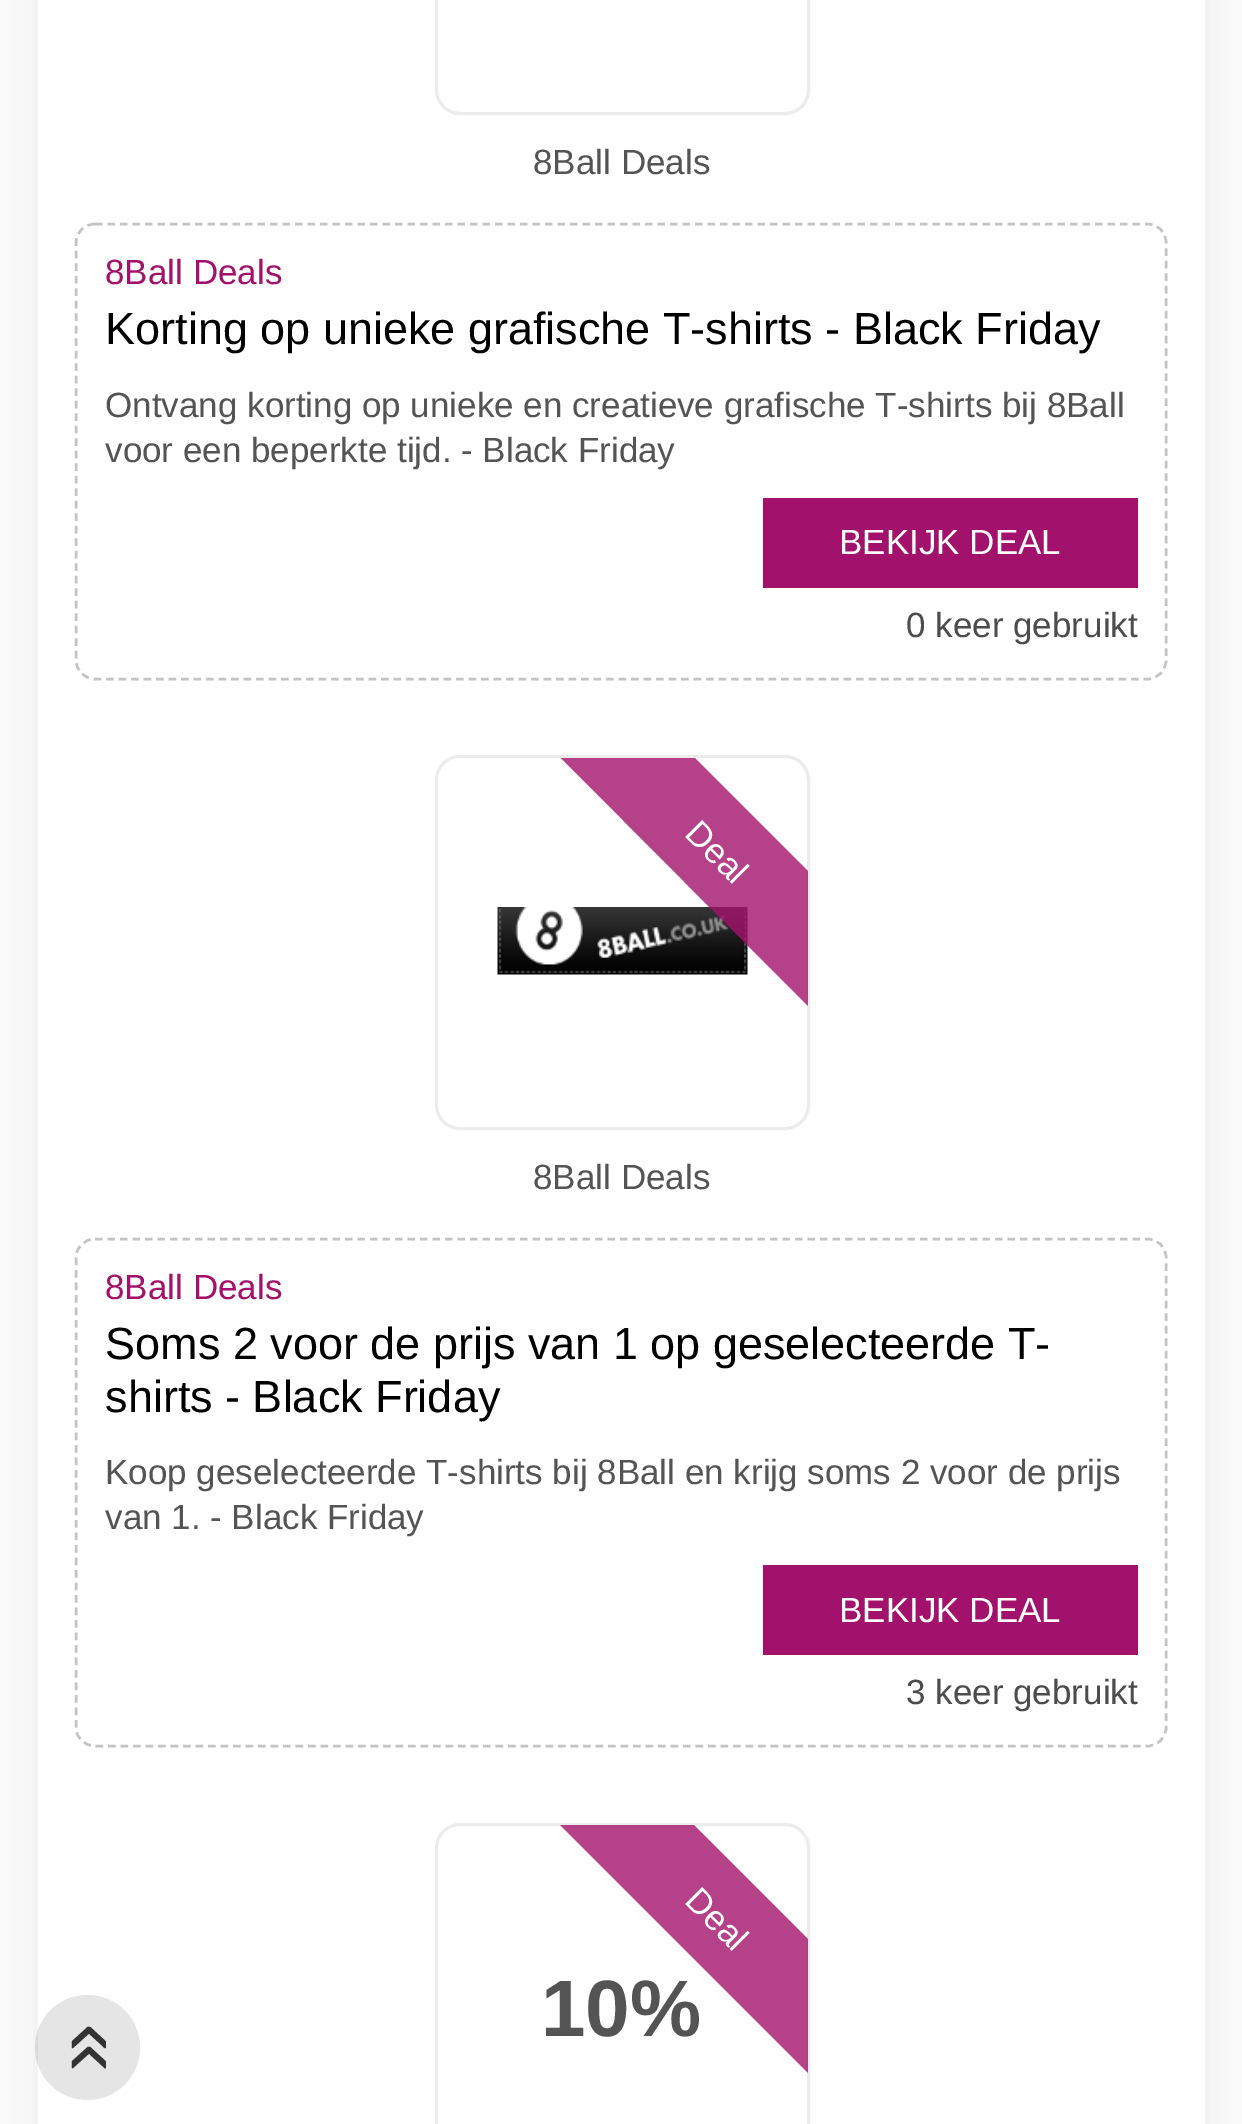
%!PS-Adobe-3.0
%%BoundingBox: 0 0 1242 2124
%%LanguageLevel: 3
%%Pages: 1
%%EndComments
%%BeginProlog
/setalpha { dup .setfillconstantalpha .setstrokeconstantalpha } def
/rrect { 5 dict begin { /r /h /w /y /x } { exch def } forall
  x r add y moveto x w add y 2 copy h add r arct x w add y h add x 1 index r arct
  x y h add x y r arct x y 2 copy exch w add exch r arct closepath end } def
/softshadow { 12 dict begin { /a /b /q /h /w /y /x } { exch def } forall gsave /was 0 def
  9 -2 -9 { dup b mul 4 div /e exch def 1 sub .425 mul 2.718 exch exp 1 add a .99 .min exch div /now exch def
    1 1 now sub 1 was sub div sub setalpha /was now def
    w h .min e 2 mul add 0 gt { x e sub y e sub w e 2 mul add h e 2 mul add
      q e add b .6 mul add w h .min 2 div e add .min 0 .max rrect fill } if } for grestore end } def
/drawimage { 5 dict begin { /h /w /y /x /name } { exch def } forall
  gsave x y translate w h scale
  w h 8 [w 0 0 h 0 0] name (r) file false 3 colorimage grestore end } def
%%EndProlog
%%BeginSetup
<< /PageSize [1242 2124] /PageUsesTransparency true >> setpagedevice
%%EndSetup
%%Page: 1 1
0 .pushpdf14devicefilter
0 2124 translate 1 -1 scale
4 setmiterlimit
0.98 setgray
0 0 1242 2124 rectfill
0 setgray
38 -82 1167 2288 25 19 0.05 softshadow
1 setgray
38 0 1167 2124 rectfill
0.925 setgray
3 setlinewidth
436.5 -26.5 372 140 23.5 rrect stroke
0.769 setgray
2.5 setlinewidth
[7.5 5] 0 setdash
newpath 95 224 moveto 1147.5 224 lineto 1158 224 1166 232 1166 242.5 curveto 1166 660 lineto 1166 670.5 1158 679 1147.5 679 curveto 95 679 lineto 84.5 679 76 670.5 76 660 curveto 76 242.5 lineto 76 232 84.5 224 95 224 curveto closepath stroke
0.635 0.067 0.42 setrgbcolor
763 498 375 90 rectfill
0.925 setgray
3 setlinewidth
[] 0 setdash
436.5 756.5 372 372 23.5 rrect stroke
(images/1.raw) 497 907 251 68 drawimage
0.8 setalpha
0.635 0.067 0.42 setrgbcolor
newpath 808 1006 moveto 561 758 lineto 695 758 lineto 808 871 lineto closepath fill
1 setalpha
0.769 setgray
2.5 setlinewidth
[7.5 5] 0 setdash
newpath 95 1239 moveto 1147.5 1239 lineto 1158 1239 1166 1247 1166 1257.5 curveto 1166 1727.5 lineto 1166 1738 1158 1746 1147.5 1746 curveto 95 1746 lineto 84.5 1746 76 1738 76 1727.5 curveto 76 1257.5 lineto 76 1247 84.5 1239 95 1239 curveto closepath stroke
0.635 0.067 0.42 setrgbcolor
763 1565 375 90 rectfill
0.925 setgray
3 setlinewidth
[] 0 setdash
436.5 1824.5 372 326 23.5 rrect stroke
0.1 setalpha
0 setgray
newpath 87.5 2047.5 52.5 0 360 arc closepath fill
/LiberationSans-Regular [35 0 0 -35 0 0] selectfont
1 setalpha
0.329 setgray
533 174 moveto (8Ball Deals) show
0.635 0.067 0.42 setrgbcolor
105 284 moveto (8Ball Deals) show
/LiberationSans-Regular [45 0 0 -45 0 0] selectfont
0 setgray
105 344 moveto (Korting op unieke grafische T-shirts - Black Friday) show
/LiberationSans-Regular [35 0 0 -35 0 0] selectfont
0.329 setgray
105 417 moveto (Ontvang korting op unieke en creatieve grafische T-shirts bij 8Ball) show
105 462 moveto (voor een beperkte tijd. - Black Friday) show
1 setgray
839 554 moveto (BEKIJK DEAL) show
0.298 setgray
906 637 moveto (0 keer gebruikt) show
1 setgray
gsave 683 835 translate 45 rotate 0 0 moveto (Deal) show grestore
0.329 setgray
533 1189 moveto (8Ball Deals) show
0.635 0.067 0.42 setrgbcolor
105 1299 moveto (8Ball Deals) show
/LiberationSans-Regular [45 0 0 -45 0 0] selectfont
0 setgray
105 1359 moveto (Soms 2 voor de prijs van 1 op geselecteerde T-) show
105 1412 moveto (shirts - Black Friday) show
/LiberationSans-Regular [35 0 0 -35 0 0] selectfont
0.329 setgray
105 1484 moveto (Koop geselecteerde T-shirts bij 8Ball en krijg soms 2 voor de prijs) show
105 1529 moveto (van 1. - Black Friday) show
1 setgray
839 1622 moveto (BEKIJK DEAL) show
0.298 setgray
906 1704 moveto (3 keer gebruikt) show
/LiberationSans-Bold [80 0 0 -80 0 0] selectfont
0.329 setgray
541 2036 moveto (10%) show
0.8 setalpha
0.635 0.067 0.42 setrgbcolor
newpath 808 2073 moveto 560 1825 lineto 694 1825 lineto 808 1939 lineto closepath fill
/LiberationSans-Regular [35 0 0 -35 0 0] selectfont
1 setalpha
1 setgray
gsave 683 1902 translate 45 rotate 0 0 moveto (Deal) show grestore
/LiberationSans-Regular [88 0 0 -88 0 0] selectfont
0.2 setgray
gsave 112 2072 translate -90 rotate 0 0 moveto (») show grestore
.poppdf14devicefilter showpage
%%EOF
